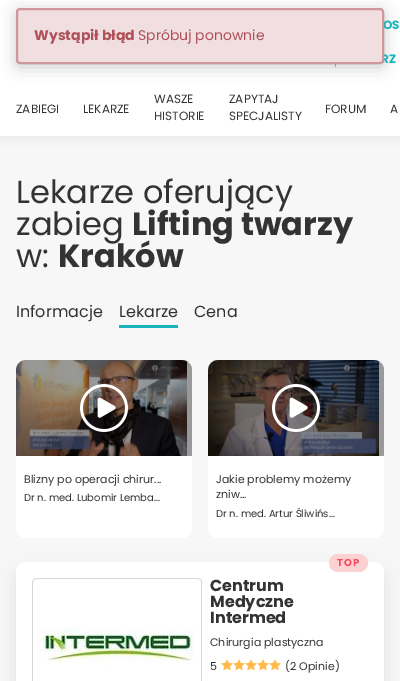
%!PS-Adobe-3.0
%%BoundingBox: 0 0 400 681
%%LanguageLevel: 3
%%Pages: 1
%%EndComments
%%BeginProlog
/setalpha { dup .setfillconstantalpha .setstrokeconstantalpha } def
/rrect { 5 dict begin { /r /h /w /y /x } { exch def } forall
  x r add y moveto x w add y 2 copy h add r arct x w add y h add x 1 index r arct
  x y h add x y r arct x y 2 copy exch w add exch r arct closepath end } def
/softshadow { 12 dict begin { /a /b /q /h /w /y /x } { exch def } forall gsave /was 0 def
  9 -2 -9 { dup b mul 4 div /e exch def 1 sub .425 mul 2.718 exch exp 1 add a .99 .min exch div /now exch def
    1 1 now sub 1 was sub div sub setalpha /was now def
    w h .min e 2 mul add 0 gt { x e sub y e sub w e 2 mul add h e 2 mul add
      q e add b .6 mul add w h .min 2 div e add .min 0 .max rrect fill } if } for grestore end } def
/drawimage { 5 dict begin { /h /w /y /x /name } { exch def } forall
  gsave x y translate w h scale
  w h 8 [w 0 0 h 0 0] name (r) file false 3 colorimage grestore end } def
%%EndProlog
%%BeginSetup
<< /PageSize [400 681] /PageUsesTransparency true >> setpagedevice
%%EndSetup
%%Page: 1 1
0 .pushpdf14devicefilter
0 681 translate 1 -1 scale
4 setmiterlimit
0.969 setgray
0 0 400 681 rectfill
0.2 setgray
0 1 400 136 0 5 0.08 softshadow
1 setgray
0 0 400 136 rectfill
0.678 setgray
335 64 1 3 rectfill
0 setgray
16 11 368 56 4 8 0.2 softshadow
0.098 0.71 0.737 setrgbcolor
119 325 59 3 rectfill
1 setgray
16 360 176 178 10 rrect fill
(images/1.raw) 16 360 171 96 drawimage
0.4 setalpha
0 setgray
newpath 26 360 moveto 182 360 lineto 187.5 360 192 364.5 192 370 curveto 192 456 lineto 16 456 lineto 16 370 lineto 16 364.5 20.5 360 26 360 curveto closepath fill
1 setalpha
(images/2.raw) 80 384 48 48 drawimage
1 setgray
208 360 176 178 10 rrect fill
(images/3.raw) 208 360 171 96 drawimage
0.4 setalpha
0 setgray
newpath 218 360 moveto 374 360 lineto 379.5 360 384 364.5 384 370 curveto 384 456 lineto 208 456 lineto 208 370 lineto 208 364.5 212.5 360 218 360 curveto closepath fill
1 setalpha
(images/4.raw) 272 384 48 48 drawimage
16 570 368 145 10 8 0.08 softshadow
1 setgray
16 562 368 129 10 rrect fill
0.988 0.82 0.82 setrgbcolor
329 554 39 18 9 rrect fill
0.839 setgray
newpath 37 578 moveto 197 578 lineto 200 578 202 580 202 583 curveto 202 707 lineto 32 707 lineto 32 583 lineto 32 580 34 578 37 578 curveto closepath 37 579 moveto 197 579 lineto 199 579 201 581 201 583 curveto 201 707 lineto 33 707 lineto 33 583 lineto 33 581 35 579 37 579 curveto closepath eofill
(images/5.raw) 33 579 168 102 drawimage
(images/6.raw) 221 659 12 12 drawimage
(images/6.raw) 233 659 12 12 drawimage
(images/6.raw) 245 659 12 12 drawimage
(images/6.raw) 257 659 12 12 drawimage
(images/6.raw) 269 659 12 12 drawimage
/Poppins-Bold [12 0 0 -12 0 0] selectfont
0.098 0.71 0.737 setrgbcolor
383 29 moveto (OS) show
381 63 moveto (RZ) show
/Poppins-Regular [12 0 0 -12 0 0] selectfont
0.2 setgray
16 113 moveto (ZABIEGI) show
83 113 moveto (LEKARZE) show
154 103 moveto (WASZE) show
154 120 moveto (HISTORIE) show
229 103 moveto (ZAPYTAJ) show
229 120 moveto (SPECJALISTY) show
325 113 moveto (FORUM) show
390 113 moveto (A) show
0.945 0.871 0.878 setrgbcolor
16 8 368 56 4 rrect fill
0.5 setalpha
0.678 0.314 0.345 setrgbcolor
2 setlinewidth
17 9 366 54 3 rrect stroke
/Poppins-Bold [14 0 0 -14 0 0] selectfont
1 setalpha
34 40 moveto (Wystąpił błąd) show
/Poppins-Regular [14 0 0 -14 0 0] selectfont
138 40 moveto (Spróbuj ponownie) show
/Poppins-Regular [32 0 0 -32 0 0] selectfont
0.2 setgray
16 203 moveto (Lekarze oferujący) show
16 235 moveto (zabieg) show
/Poppins-Bold [32 0 0 -32 0 0] selectfont
132 235 moveto (Lifting twarzy) show
/Poppins-Regular [32 0 0 -32 0 0] selectfont
16 267 moveto (w:) show
/Poppins-Bold [32 0 0 -32 0 0] selectfont
58 267 moveto (Kraków) show
/Poppins-Regular [16 0 0 -16 0 0] selectfont
16 317 moveto (Informacje) show
119 317 moveto (Lekarze) show
194 317 moveto (Cena) show
/Poppins-Regular [11 0 0 -11 0 0] selectfont
24 483 moveto (Blizny po operacji chirur...) show
/Poppins-Regular [10 0 0 -10 0 0] selectfont
24 501 moveto (Dr n. med. Lubomir Lemba...) show
/Poppins-Regular [11 0 0 -11 0 0] selectfont
216 483 moveto (Jakie problemy możemy) show
216 498 moveto (zniw...) show
/Poppins-Regular [10 0 0 -10 0 0] selectfont
216 517 moveto (Dr n. med. Artur Śliwińs...) show
/Poppins-Bold [10 0 0 -10 0 0] selectfont
0.976 0.29 0.373 setrgbcolor
337 566 moveto 1 0 (TOP) ashow
/Poppins-Bold [16 0 0 -16 0 0] selectfont
0.2 setgray
210 591 moveto (Centrum) show
210 607 moveto (Medyczne) show
210 623 moveto (Intermed) show
/Poppins-Regular [11 0 0 -11 0 0] selectfont
210 646 moveto (Chirurgia plastyczna) show
210 670 moveto (5) show
285 670 moveto (\(2 Opinie\)) show
.poppdf14devicefilter showpage
%%EOF
